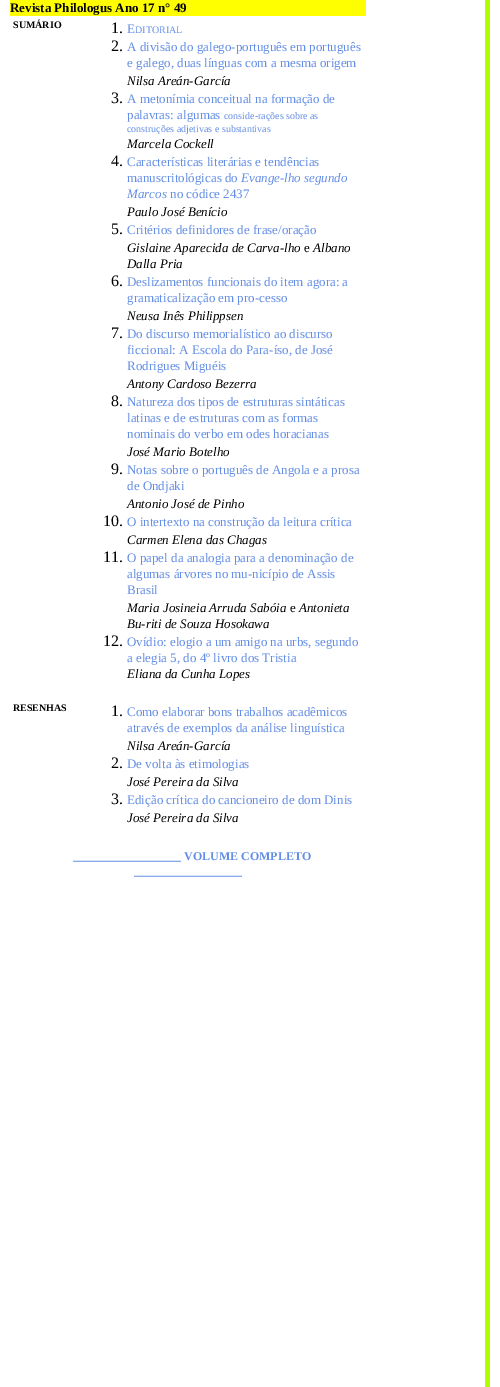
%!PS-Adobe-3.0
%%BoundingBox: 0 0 500 1387
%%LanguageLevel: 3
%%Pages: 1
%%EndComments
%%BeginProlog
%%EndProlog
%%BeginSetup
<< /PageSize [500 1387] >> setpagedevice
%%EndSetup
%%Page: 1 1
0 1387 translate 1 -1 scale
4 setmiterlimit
1 setgray
0 0 500 1387 rectfill
0.686 1 0 setrgbcolor
485 0 5 1387 rectfill
1 1 0 setrgbcolor
10 0 356 16 rectfill
/LiberationSerif-Bold [13 0 0 -13 0 0] selectfont
0 setgray
10 12 moveto (Revista Philologus Ano 17 n° 49) show
/LiberationSerif-Bold [10 0 0 -10 0 0] selectfont
13 28 moveto (SUMÁRIO) show
/LiberationSerif-Regular [16 0 0 -16 0 0] selectfont
111 33 moveto (1.) show
/LiberationSerif-Regular [13 0 0 -13 0 0] selectfont
0.388 0.557 0.902 setrgbcolor
127 33 moveto (E) show
/LiberationSerif-Regular [10 0 0 -10 0 0] selectfont
135 33 moveto (DITORIAL) show
/LiberationSerif-Regular [16 0 0 -16 0 0] selectfont
0 setgray
111 51 moveto (2.) show
/LiberationSerif-Regular [13 0 0 -13 0 0] selectfont
0.388 0.557 0.902 setrgbcolor
127 51 moveto (A divisão do galego-português em português) show
127 67 moveto (e galego, duas línguas com a mesma origem) show
/LiberationSerif-Italic [13 0 0 -13 0 0] selectfont
0 setgray
127 85 moveto (Nilsa Areán-García) show
/LiberationSerif-Regular [16 0 0 -16 0 0] selectfont
111 103 moveto (3.) show
/LiberationSerif-Regular [13 0 0 -13 0 0] selectfont
0.388 0.557 0.902 setrgbcolor
127 103 moveto (A metonímia conceitual na formação de) show
127 119 moveto (palavras: algumas) show
/LiberationSerif-Regular [10 0 0 -10 0 0] selectfont
224 119 moveto (conside-rações sobre as) show
127 132 moveto (construções adjetivas e substantivas) show
/LiberationSerif-Italic [13 0 0 -13 0 0] selectfont
0 setgray
127 148 moveto (Marcela Cockell) show
/LiberationSerif-Regular [16 0 0 -16 0 0] selectfont
111 166 moveto (4.) show
/LiberationSerif-Regular [13 0 0 -13 0 0] selectfont
0.388 0.557 0.902 setrgbcolor
127 166 moveto (Características literárias e tendências) show
127 182 moveto (manuscritológicas do) show
/LiberationSerif-Italic [13 0 0 -13 0 0] selectfont
241 182 moveto (Evange-lho segundo) show
127 198 moveto (Marcos) show
/LiberationSerif-Regular [13 0 0 -13 0 0] selectfont
170 198 moveto (no códice 2437) show
/LiberationSerif-Italic [13 0 0 -13 0 0] selectfont
0 setgray
127 216 moveto (Paulo José Benício) show
/LiberationSerif-Regular [16 0 0 -16 0 0] selectfont
111 234 moveto (5.) show
/LiberationSerif-Regular [13 0 0 -13 0 0] selectfont
0.388 0.557 0.902 setrgbcolor
127 234 moveto (Critérios definidores de frase/oração) show
/LiberationSerif-Italic [13 0 0 -13 0 0] selectfont
0 setgray
127 252 moveto (Gislaine Aparecida de Carva-lho) show
/LiberationSerif-Regular [13 0 0 -13 0 0] selectfont
304 252 moveto (e) show
/LiberationSerif-Italic [13 0 0 -13 0 0] selectfont
313 252 moveto (Albano) show
127 268 moveto (Dalla Pria) show
/LiberationSerif-Regular [16 0 0 -16 0 0] selectfont
111 286 moveto (6.) show
/LiberationSerif-Regular [13 0 0 -13 0 0] selectfont
0.388 0.557 0.902 setrgbcolor
127 286 moveto (Deslizamentos funcionais do item agora: a) show
127 302 moveto (gramaticalização em pro-cesso) show
/LiberationSerif-Italic [13 0 0 -13 0 0] selectfont
0 setgray
127 320 moveto (Neusa Inês Philippsen) show
/LiberationSerif-Regular [16 0 0 -16 0 0] selectfont
111 338 moveto (7.) show
/LiberationSerif-Regular [13 0 0 -13 0 0] selectfont
0.388 0.557 0.902 setrgbcolor
127 338 moveto (Do discurso memorialístico ao discurso) show
127 354 moveto (ficcional: A Escola do Para-íso, de José) show
127 370 moveto (Rodrigues Miguéis) show
/LiberationSerif-Italic [13 0 0 -13 0 0] selectfont
0 setgray
127 388 moveto (Antony Cardoso Bezerra) show
/LiberationSerif-Regular [16 0 0 -16 0 0] selectfont
111 406 moveto (8.) show
/LiberationSerif-Regular [13 0 0 -13 0 0] selectfont
0.388 0.557 0.902 setrgbcolor
127 406 moveto (Natureza dos tipos de estruturas sintáticas) show
127 422 moveto (latinas e de estruturas com as formas) show
127 438 moveto (nominais do verbo em odes horacianas) show
/LiberationSerif-Italic [13 0 0 -13 0 0] selectfont
0 setgray
127 456 moveto (José Mario Botelho) show
/LiberationSerif-Regular [16 0 0 -16 0 0] selectfont
111 474 moveto (9.) show
/LiberationSerif-Regular [13 0 0 -13 0 0] selectfont
0.388 0.557 0.902 setrgbcolor
127 474 moveto (Notas sobre o português de Angola e a prosa) show
127 490 moveto (de Ondjaki) show
/LiberationSerif-Italic [13 0 0 -13 0 0] selectfont
0 setgray
127 508 moveto (Antonio José de Pinho) show
/LiberationSerif-Regular [16 0 0 -16 0 0] selectfont
103 526 moveto (10.) show
/LiberationSerif-Regular [13 0 0 -13 0 0] selectfont
0.388 0.557 0.902 setrgbcolor
127 526 moveto (O intertexto na construção da leitura crítica) show
/LiberationSerif-Italic [13 0 0 -13 0 0] selectfont
0 setgray
127 544 moveto (Carmen Elena das Chagas) show
/LiberationSerif-Regular [16 0 0 -16 0 0] selectfont
103 562 moveto (11.) show
/LiberationSerif-Regular [13 0 0 -13 0 0] selectfont
0.388 0.557 0.902 setrgbcolor
127 562 moveto (O papel da analogia para a denominação de) show
127 578 moveto (algumas árvores no mu-nicípio de Assis) show
127 594 moveto (Brasil) show
/LiberationSerif-Italic [13 0 0 -13 0 0] selectfont
0 setgray
127 612 moveto (Maria Josineia Arruda Sabóia) show
/LiberationSerif-Regular [13 0 0 -13 0 0] selectfont
290 612 moveto (e) show
/LiberationSerif-Italic [13 0 0 -13 0 0] selectfont
299 612 moveto (Antonieta) show
127 628 moveto (Bu-riti de Souza Hosokawa) show
/LiberationSerif-Regular [16 0 0 -16 0 0] selectfont
103 646 moveto (12.) show
/LiberationSerif-Regular [13 0 0 -13 0 0] selectfont
0.388 0.557 0.902 setrgbcolor
127 646 moveto (Ovídio: elogio a um amigo na urbs, segundo) show
127 662 moveto (a elegia 5, do 4º livro dos Tristia) show
/LiberationSerif-Italic [13 0 0 -13 0 0] selectfont
0 setgray
127 678 moveto (Eliana da Cunha Lopes) show
/LiberationSerif-Bold [10 0 0 -10 0 0] selectfont
13 711 moveto (RESENHAS) show
/LiberationSerif-Regular [16 0 0 -16 0 0] selectfont
111 716 moveto (1.) show
/LiberationSerif-Regular [13 0 0 -13 0 0] selectfont
0.388 0.557 0.902 setrgbcolor
127 716 moveto (Como elaborar bons trabalhos acadêmicos) show
127 732 moveto (através de exemplos da análise linguística) show
/LiberationSerif-Italic [13 0 0 -13 0 0] selectfont
0 setgray
127 750 moveto (Nilsa Areán-García) show
/LiberationSerif-Regular [16 0 0 -16 0 0] selectfont
111 768 moveto (2.) show
/LiberationSerif-Regular [13 0 0 -13 0 0] selectfont
0.388 0.557 0.902 setrgbcolor
127 768 moveto (De volta às etimologias) show
/LiberationSerif-Italic [13 0 0 -13 0 0] selectfont
0 setgray
127 786 moveto (José Pereira da Silva) show
/LiberationSerif-Regular [16 0 0 -16 0 0] selectfont
111 804 moveto (3.) show
/LiberationSerif-Regular [13 0 0 -13 0 0] selectfont
0.388 0.557 0.902 setrgbcolor
127 804 moveto (Edição crítica do cancioneiro de dom Dinis) show
/LiberationSerif-Italic [13 0 0 -13 0 0] selectfont
0 setgray
127 822 moveto (José Pereira da Silva) show
/LiberationSerif-Bold [12 0 0 -12 0 0] selectfont
0.388 0.557 0.902 setrgbcolor
73 860 moveto (__________________ VOLUME COMPLETO) show
134 875 moveto (__________________) show
showpage
%%EOF
